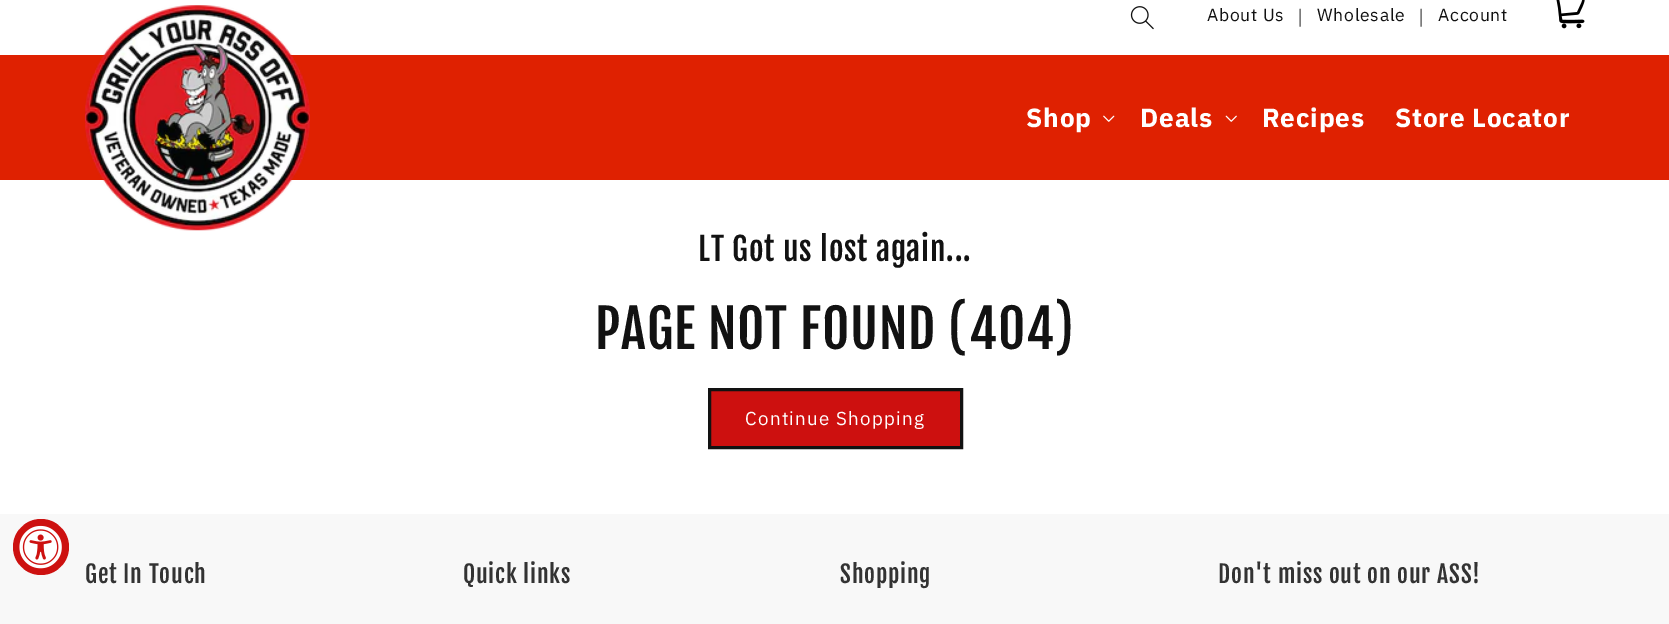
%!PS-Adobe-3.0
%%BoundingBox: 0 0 1669 624
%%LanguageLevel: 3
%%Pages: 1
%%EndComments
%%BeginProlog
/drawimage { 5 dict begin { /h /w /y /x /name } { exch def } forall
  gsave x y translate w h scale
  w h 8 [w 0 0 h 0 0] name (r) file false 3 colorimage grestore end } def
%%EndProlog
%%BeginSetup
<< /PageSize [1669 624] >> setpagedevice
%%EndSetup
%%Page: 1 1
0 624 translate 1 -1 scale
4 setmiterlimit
1 setgray
0 0 1669 624 rectfill
(images/1.raw) 1130 6 24 24 drawimage
(images/2.raw) 1556 0 29 29 drawimage
0.875 0.129 0.004 setrgbcolor
0 55 1669 125 rectfill
(images/3.raw) 85 5 225 226 drawimage
(images/4.raw) 1103 115 12 7 drawimage
(images/5.raw) 1225 115 12 7 drawimage
0.804 0.063 0.059 setrgbcolor
711 391 249 55 rectfill
0.071 setgray
3 setlinewidth
709.5 389.5 252 58 rectstroke
0.973 setgray
0 514 1669 110 rectfill
0.804 0.067 0.063 setrgbcolor
newpath 41 547 28 0 360 arc closepath fill
(images/6.raw) 19 525 43 44 drawimage
/IBMPlexSans-Regular [17.5 0 0 -17.5 0 0] selectfont
0.071 setgray
1207 21 moveto 0.75 0 (About Us) ashow
/IBMPlexSans-Regular [20 0 0 -20 0 0] selectfont
0.302 setgray
1297 24 moveto 0.75 0 (|) ashow
/IBMPlexSans-Regular [17.5 0 0 -17.5 0 0] selectfont
0.071 setgray
1317 21 moveto 0.75 0 (Wholesale) ashow
/IBMPlexSans-Regular [20 0 0 -20 0 0] selectfont
0.302 setgray
1418 24 moveto 0.75 0 (|) ashow
/IBMPlexSans-Regular [17.5 0 0 -17.5 0 0] selectfont
0.071 setgray
1438 21 moveto 0.75 0 (Account) ashow
/IBMPlexSans-Bold [26.25 0 0 -26.25 0 0] selectfont
1 setgray
1026 127 moveto 0.75 0 (Shop) ashow
1140 127 moveto 0.75 0 (Deals) ashow
1262 127 moveto 0.75 0 (Recipes) ashow
1395 127 moveto 0.75 0 (Store Locator) ashow
/FjallaOne-Regular [31.5 0 0 -31.5 0 0] selectfont
0.071 setgray
698 261 moveto 0.8 0 (LT Got us lost again...) ashow
/FjallaOne-Regular [52.5 0 0 -52.5 0 0] selectfont
595 349 moveto 0.8 0 (PAGE NOT FOUND \(404\)) ashow
/IBMPlexSans-Regular [18.75 0 0 -18.75 0 0] selectfont
1 setgray
745 425 moveto 1.25 0 (Continue Shopping) ashow
/FjallaOne-Regular [23.6 0 0 -23.6 0 0] selectfont
0.2 setgray
85 583 moveto 0.8 0 (Get In Touch) ashow
463 583 moveto 0.8 0 (Quick links) ashow
840 583 moveto 0.8 0 (Shopping) ashow
1218 583 moveto 0.8 0 (Don't miss out on our ASS!) ashow
showpage
%%EOF
